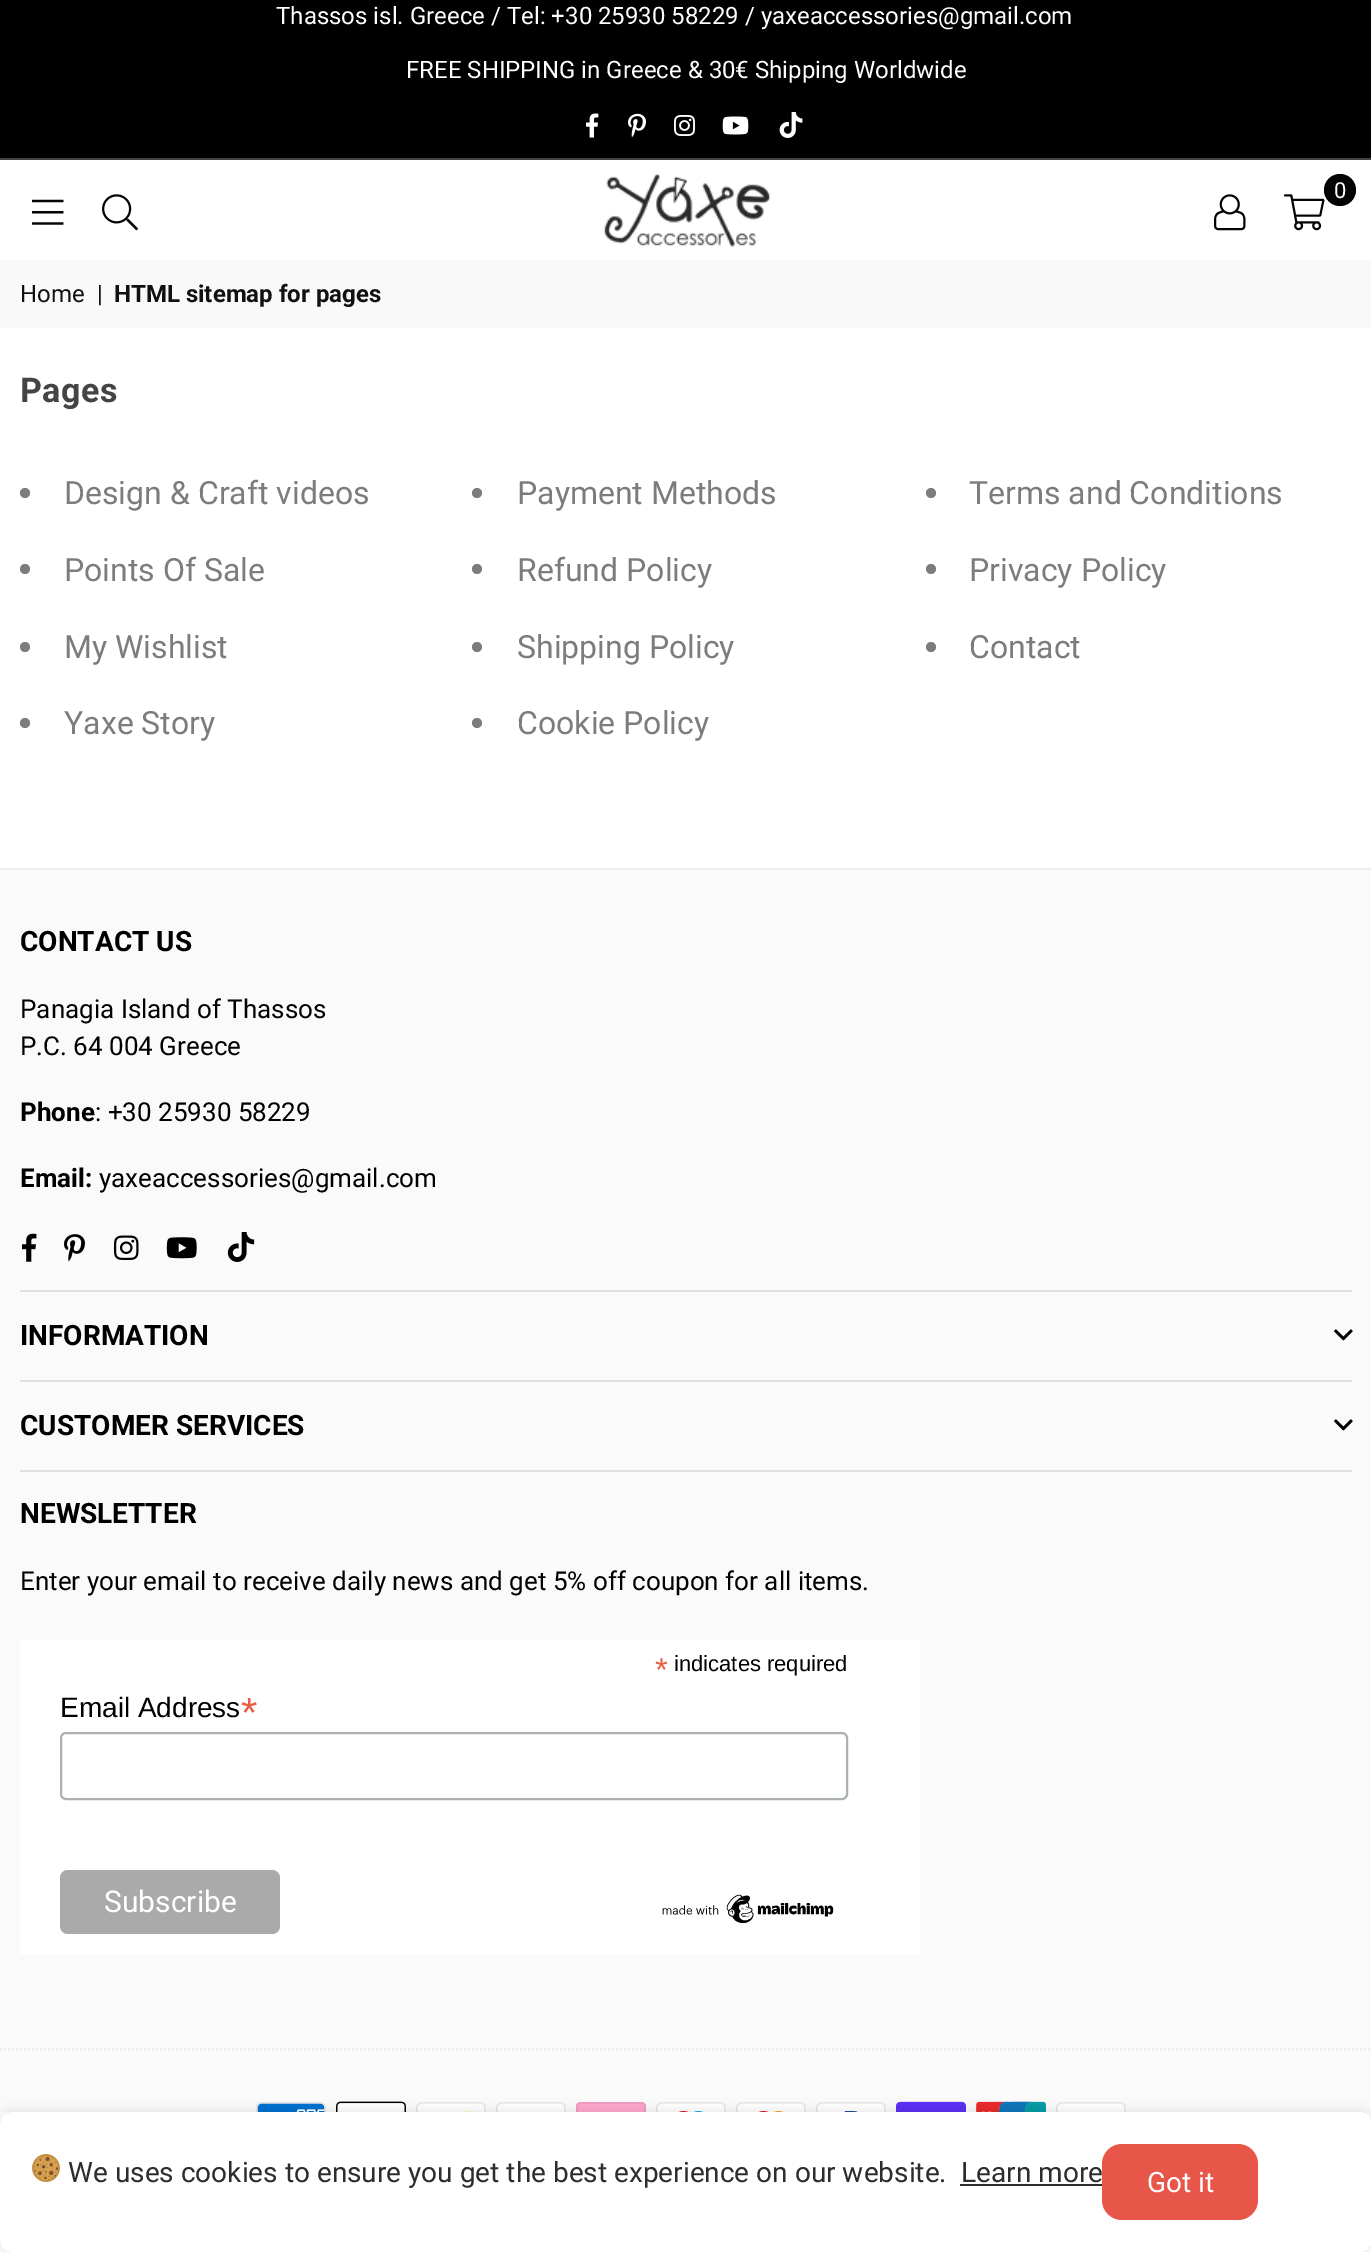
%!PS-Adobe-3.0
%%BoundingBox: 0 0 1371 2252
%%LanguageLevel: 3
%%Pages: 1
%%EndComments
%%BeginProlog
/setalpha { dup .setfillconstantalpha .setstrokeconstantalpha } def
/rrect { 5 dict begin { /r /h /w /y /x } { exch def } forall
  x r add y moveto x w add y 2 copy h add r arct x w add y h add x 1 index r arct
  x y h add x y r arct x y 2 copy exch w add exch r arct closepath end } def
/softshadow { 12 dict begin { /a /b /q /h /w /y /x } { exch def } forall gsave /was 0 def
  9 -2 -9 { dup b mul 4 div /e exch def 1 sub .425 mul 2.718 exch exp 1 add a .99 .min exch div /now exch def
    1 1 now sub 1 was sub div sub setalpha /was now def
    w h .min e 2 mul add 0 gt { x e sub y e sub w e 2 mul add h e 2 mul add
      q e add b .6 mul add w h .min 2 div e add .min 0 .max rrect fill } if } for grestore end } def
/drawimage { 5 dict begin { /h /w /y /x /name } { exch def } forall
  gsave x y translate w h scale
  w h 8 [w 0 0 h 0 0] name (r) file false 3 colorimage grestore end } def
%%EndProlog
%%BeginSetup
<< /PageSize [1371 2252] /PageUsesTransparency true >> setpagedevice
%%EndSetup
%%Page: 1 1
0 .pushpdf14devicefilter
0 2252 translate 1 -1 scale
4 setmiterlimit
1 setgray
0 0 1371 2252 rectfill
0 setgray
0 0 1371 158 rectfill
0.267 setgray
0 158 1371 2 rectfill
(images/1.raw) 586 113 13 25 drawimage
(images/2.raw) 628 113 18 25 drawimage
(images/3.raw) 674 115 21 21 drawimage
(images/4.raw) 722 116 27 19 drawimage
(images/5.raw) 779 112 24 26 drawimage
(images/6.raw) 603 173 168 74 drawimage
(images/7.raw) 1284 194 41 37 drawimage
0.012 0.02 0.02 setrgbcolor
newpath 1340 190 16 0 360 arc closepath fill
(images/8.raw) 1214 194 32 37 drawimage
(images/9.raw) 32 199 32 26 drawimage
(images/10.raw) 102 194 36 37 drawimage
0.976 setgray
0 260 1371 68 rectfill
0.486 setgray
newpath 25 493 5 0 360 arc closepath fill
newpath 477 493 5 0 360 arc closepath fill
newpath 931 493 5 0 360 arc closepath fill
newpath 25 569 5 0 360 arc closepath fill
newpath 477 569 5 0 360 arc closepath fill
newpath 931 569 5 0 360 arc closepath fill
newpath 25 647 5 0 360 arc closepath fill
newpath 477 647 5 0 360 arc closepath fill
newpath 931 647 5 0 360 arc closepath fill
newpath 25 723 5 0 360 arc closepath fill
newpath 477 723 5 0 360 arc closepath fill
0.98 setgray
0 870 1371 1242 rectfill
0.933 setgray
0 868 1371 2 rectfill
(images/11.raw) 22 1233 15 29 drawimage
(images/12.raw) 64 1234 21 28 drawimage
(images/13.raw) 114 1235 25 25 drawimage
(images/14.raw) 166 1237 31 22 drawimage
(images/15.raw) 227 1232 28 30 drawimage
0.882 setgray
20 1290 1332 2 rectfill
(images/16.raw) 1334 1329 19 12 drawimage
20 1380 1332 2 rectfill
(images/16.raw) 1334 1419 19 12 drawimage
20 1470 1332 2 rectfill
1 setgray
20 1640 900 314 rectfill
0.671 0.69 0.698 setrgbcolor
2 setlinewidth
61 1733 786 66 5 rrect stroke
0.667 setgray
60 1870 220 64 8 rrect fill
(images/17.raw) 662 1894 172 30 drawimage
0.933 setgray
[2 2] 0 setdash
newpath 0 2049 moveto 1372 2049 lineto stroke
(images/18.raw) 256 2102 70 10 drawimage
(images/19.raw) 336 2101 70 11 drawimage
(images/20.raw) 416 2102 70 10 drawimage
(images/21.raw) 496 2102 70 10 drawimage
(images/22.raw) 576 2102 70 10 drawimage
(images/23.raw) 656 2102 70 10 drawimage
(images/24.raw) 736 2102 70 10 drawimage
(images/25.raw) 816 2102 70 10 drawimage
(images/26.raw) 896 2101 70 11 drawimage
(images/27.raw) 976 2101 70 11 drawimage
(images/21.raw) 1056 2102 70 10 drawimage
gsave
newpath 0 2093 moveto 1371 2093 lineto 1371 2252 lineto 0 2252 lineto closepath 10 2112 moveto 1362 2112 lineto 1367.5 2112 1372 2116.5 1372 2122 curveto 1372 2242 lineto 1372 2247.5 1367.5 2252 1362 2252 curveto 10 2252 lineto 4.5 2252 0 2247.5 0 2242 curveto 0 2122 lineto 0 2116.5 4.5 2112 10 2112 curveto closepath eoclip newpath
0 setgray
0 2112 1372 140 10 6 0.12 softshadow
grestore
(images/28.raw) 32 2154 28 28 drawimage
0.176 setgray
960 2184 142 2 rectfill
0.91 0.337 0.286 setrgbcolor
1102 2144 156 76 20 rrect fill
/Roboto-Regular [24 0 0 -24 0 0] selectfont
1 setgray
276 24 moveto (Thassos isl. Greece / Tel: +30 25930 58229 / yaxeaccessories@gmail.com) show
406 78 moveto (FREE SHIPPING in Greece & 30€ Shipping Worldwide) show
/Roboto-Regular [22 0 0 -22 0 0] selectfont
1334 198 moveto (0) show
/Roboto-Regular [24 0 0 -24 0 0] selectfont
0.067 setgray
20 302 moveto (Home) show
97 302 moveto (|) show
/Roboto-Bold [24 0 0 -24 0 0] selectfont
114 302 moveto (HTML sitemap for pages) show
/Roboto-Bold [34 0 0 -34 0 0] selectfont
0.267 setgray
20 402 moveto 0.5 0 (Pages) ashow
/Roboto-Regular [32 0 0 -32 0 0] selectfont
0.486 setgray
64 504 moveto (Design & Craft videos) show
517 504 moveto (Payment Methods) show
969 504 moveto (Terms and Conditions) show
64 581 moveto (Points Of Sale) show
517 581 moveto (Refund Policy) show
969 581 moveto (Privacy Policy) show
64 658 moveto (My Wishlist) show
517 658 moveto (Shipping Policy) show
969 658 moveto (Contact) show
64 734 moveto (Yaxe Story) show
517 734 moveto (Cookie Policy) show
/Roboto-Bold [28 0 0 -28 0 0] selectfont
0 setgray
20 951 moveto (CONTACT US) show
/Roboto-Regular [26 0 0 -26 0 0] selectfont
20 1018 moveto (Panagia Island of Thassos) show
20 1055 moveto (P.C. 64 004 Greece) show
/Roboto-Bold [26 0 0 -26 0 0] selectfont
20 1121 moveto (Phone) show
/Roboto-Regular [26 0 0 -26 0 0] selectfont
95 1121 moveto (: +30 25930 58229) show
/Roboto-Bold [26 0 0 -26 0 0] selectfont
20 1187 moveto (Email:) show
/Roboto-Regular [26 0 0 -26 0 0] selectfont
99 1187 moveto (yaxeaccessories@gmail.com) show
/Roboto-Bold [28 0 0 -28 0 0] selectfont
20 1345 moveto (INFORMATION) show
20 1435 moveto (CUSTOMER SERVICES) show
20 1523 moveto (NEWSLETTER) show
/Roboto-Regular [26 0 0 -26 0 0] selectfont
20 1590 moveto (Enter your email to receive daily news and get 5% off coupon for all items.) show
/LiberationSans-Regular [33 0 0 -33 0 0] selectfont
0.91 0.361 0.255 setrgbcolor
655 1681 moveto (*) show
/LiberationSans-Regular [22 0 0 -22 0 0] selectfont
0 setgray
674 1671 moveto (indicates required) show
/LiberationSans-Regular [28 0 0 -28 0 0] selectfont
60 1717 moveto (Email Address) show
/LiberationSans-Regular [42 0 0 -42 0 0] selectfont
0.91 0.361 0.255 setrgbcolor
241 1727 moveto (*) show
/Roboto-Regular [30 0 0 -30 0 0] selectfont
1 setgray
104 1912 moveto (Subscribe) show
/Roboto-Regular [28 0 0 -28 0 0] selectfont
0.176 setgray
68 2182 moveto (We uses cookies to ensure you get the best experience on our website.) show
961 2182 moveto (Learn more) show
1 setgray
1147 2192 moveto (Got it) show
.poppdf14devicefilter showpage
%%EOF
